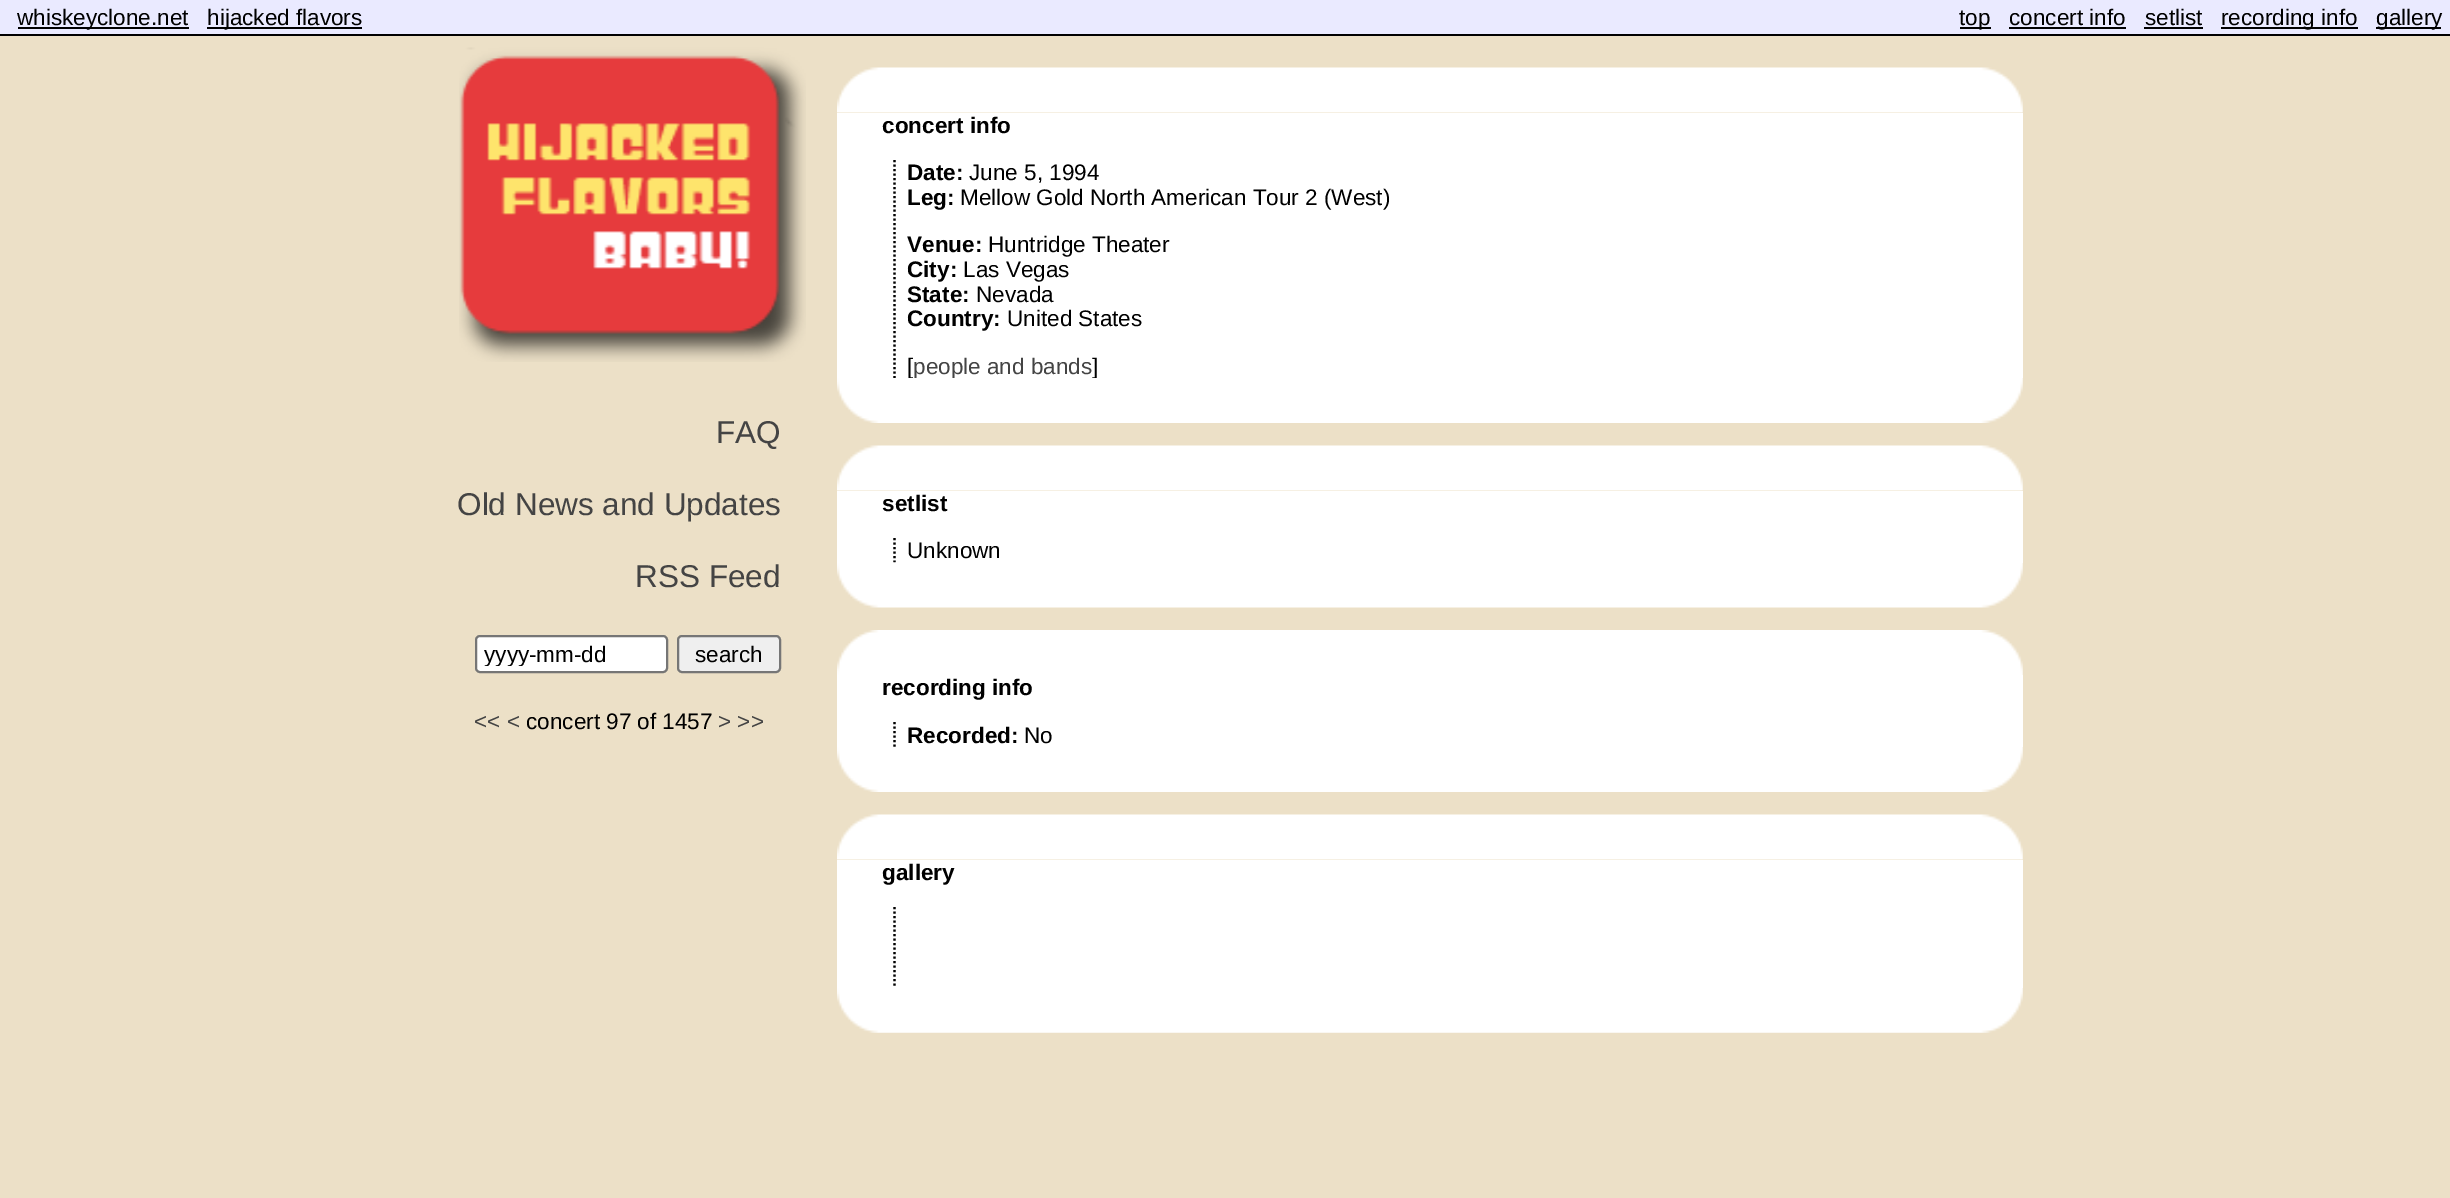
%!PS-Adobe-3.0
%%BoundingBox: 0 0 2450 1198
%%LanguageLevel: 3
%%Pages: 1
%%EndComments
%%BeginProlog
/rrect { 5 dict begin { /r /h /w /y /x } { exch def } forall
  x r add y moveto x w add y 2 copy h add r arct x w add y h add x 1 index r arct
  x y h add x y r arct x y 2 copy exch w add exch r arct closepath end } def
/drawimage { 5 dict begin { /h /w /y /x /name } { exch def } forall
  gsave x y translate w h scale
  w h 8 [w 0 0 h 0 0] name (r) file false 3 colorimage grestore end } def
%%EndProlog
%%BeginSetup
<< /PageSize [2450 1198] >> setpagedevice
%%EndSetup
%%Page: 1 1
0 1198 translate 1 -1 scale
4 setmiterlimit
0.925 0.878 0.78 setrgbcolor
0 0 2450 1198 rectfill
0.918 0.918 1 setrgbcolor
0 0 2450 34 rectfill
0 setgray
0 34 2450 2 rectfill
18 27 171 2 rectfill
207 27 155 2 rectfill
1960 27 31 2 rectfill
2009 27 117 2 rectfill
2144 27 59 2 rectfill
2221 27 137 2 rectfill
2376 27 65 2 rectfill
(images/1.raw) 459 47 347 315 drawimage
1 setgray
476 636 191 36 4 rrect gsave fill grestore
0.463 setgray
2 setlinewidth
stroke
0.937 setgray
678 636 102 36 4 rrect gsave fill grestore
0.463 setgray
stroke
(images/2.raw) 837 67 1186 46 drawimage
1 setgray
837 113 1186 265 rectfill
0 setgray
2.2 setlinewidth
[2.25 2.25] 0 setdash
newpath 894.5 160 moveto 894.5 378 lineto stroke
(images/2.raw) 837 445 1186 46 drawimage
1 setgray
837 491 1186 72 rectfill
0 setgray
newpath 894.5 538 moveto 894.5 562.5 lineto stroke
(images/4.raw) 837 562 1186 46 drawimage
(images/5.raw) 837 630 1186 45 drawimage
1 setgray
837 675 1186 72 rectfill
0 setgray
newpath 894.5 722 moveto 894.5 747 lineto stroke
(images/3.raw) 837 747 1186 45 drawimage
(images/6.raw) 837 814 1186 46 drawimage
1 setgray
837 860 1186 128 rectfill
0 setgray
newpath 894.5 907 moveto 894.5 988 lineto stroke
(images/7.raw) 837 988 1186 45 drawimage
/LiberationSans-Regular [22.5 0 0 -22.5 0 0] selectfont
17 25 moveto (whiskeyclone.net) show
207 25 moveto (hijacked flavors) show
1959 25 moveto (top) show
2009 25 moveto (concert info) show
2145 25 moveto (setlist) show
2221 25 moveto (recording info) show
2376 25 moveto (gallery) show
/LiberationSans-Regular [31.5 0 0 -31.5 0 0] selectfont
0.267 setgray
716 443 moveto (FAQ) show
457 515 moveto (Old News and Updates) show
635 587 moveto (RSS Feed) show
gsave
484 641 175 25 rectclip
/LiberationSans-Regular [22.5 0 0 -22.5 0 0] selectfont
0 setgray
484 662 moveto (yyyy-mm-dd) show
grestore
/LiberationSans-Regular [22.5 0 0 -22.5 0 0] selectfont
0 setgray
695 662 moveto (search) show
0.267 setgray
474 729 moveto (<< <) show
0 setgray
526 729 moveto (concert 97 of 1457) show
0.267 setgray
718 729 moveto (> >>) show
/LiberationSans-Bold [22.5 0 0 -22.5 0 0] selectfont
0 setgray
882 133 moveto (concert info) show
907 180 moveto (Date:) show
/LiberationSans-Regular [22.5 0 0 -22.5 0 0] selectfont
969 180 moveto (June 5, 1994) show
/LiberationSans-Bold [22.5 0 0 -22.5 0 0] selectfont
907 205 moveto (Leg:) show
/LiberationSans-Regular [22.5 0 0 -22.5 0 0] selectfont
960 205 moveto (Mellow Gold North American Tour 2 \(West\)) show
/LiberationSans-Bold [22.5 0 0 -22.5 0 0] selectfont
907 252 moveto (Venue:) show
/LiberationSans-Regular [22.5 0 0 -22.5 0 0] selectfont
988 252 moveto (Huntridge Theater) show
/LiberationSans-Bold [22.5 0 0 -22.5 0 0] selectfont
907 277 moveto (City:) show
/LiberationSans-Regular [22.5 0 0 -22.5 0 0] selectfont
963 277 moveto (Las Vegas) show
/LiberationSans-Bold [22.5 0 0 -22.5 0 0] selectfont
907 302 moveto (State:) show
/LiberationSans-Regular [22.5 0 0 -22.5 0 0] selectfont
976 302 moveto (Nevada) show
/LiberationSans-Bold [22.5 0 0 -22.5 0 0] selectfont
907 326 moveto (Country:) show
/LiberationSans-Regular [22.5 0 0 -22.5 0 0] selectfont
1007 326 moveto (United States) show
907 374 moveto ([) show
0.267 setgray
913 374 moveto (people and bands) show
0 setgray
1092 374 moveto (]) show
(images/3.raw) 837 378 1186 45 drawimage
/LiberationSans-Bold [22.5 0 0 -22.5 0 0] selectfont
882 511 moveto (setlist) show
/LiberationSans-Regular [22.5 0 0 -22.5 0 0] selectfont
907 558 moveto (Unknown) show
/LiberationSans-Bold [22.5 0 0 -22.5 0 0] selectfont
882 695 moveto (recording info) show
907 743 moveto (Recorded:) show
/LiberationSans-Regular [22.5 0 0 -22.5 0 0] selectfont
1024 743 moveto (No) show
/LiberationSans-Bold [22.5 0 0 -22.5 0 0] selectfont
882 880 moveto (gallery) show
showpage
%%EOF
